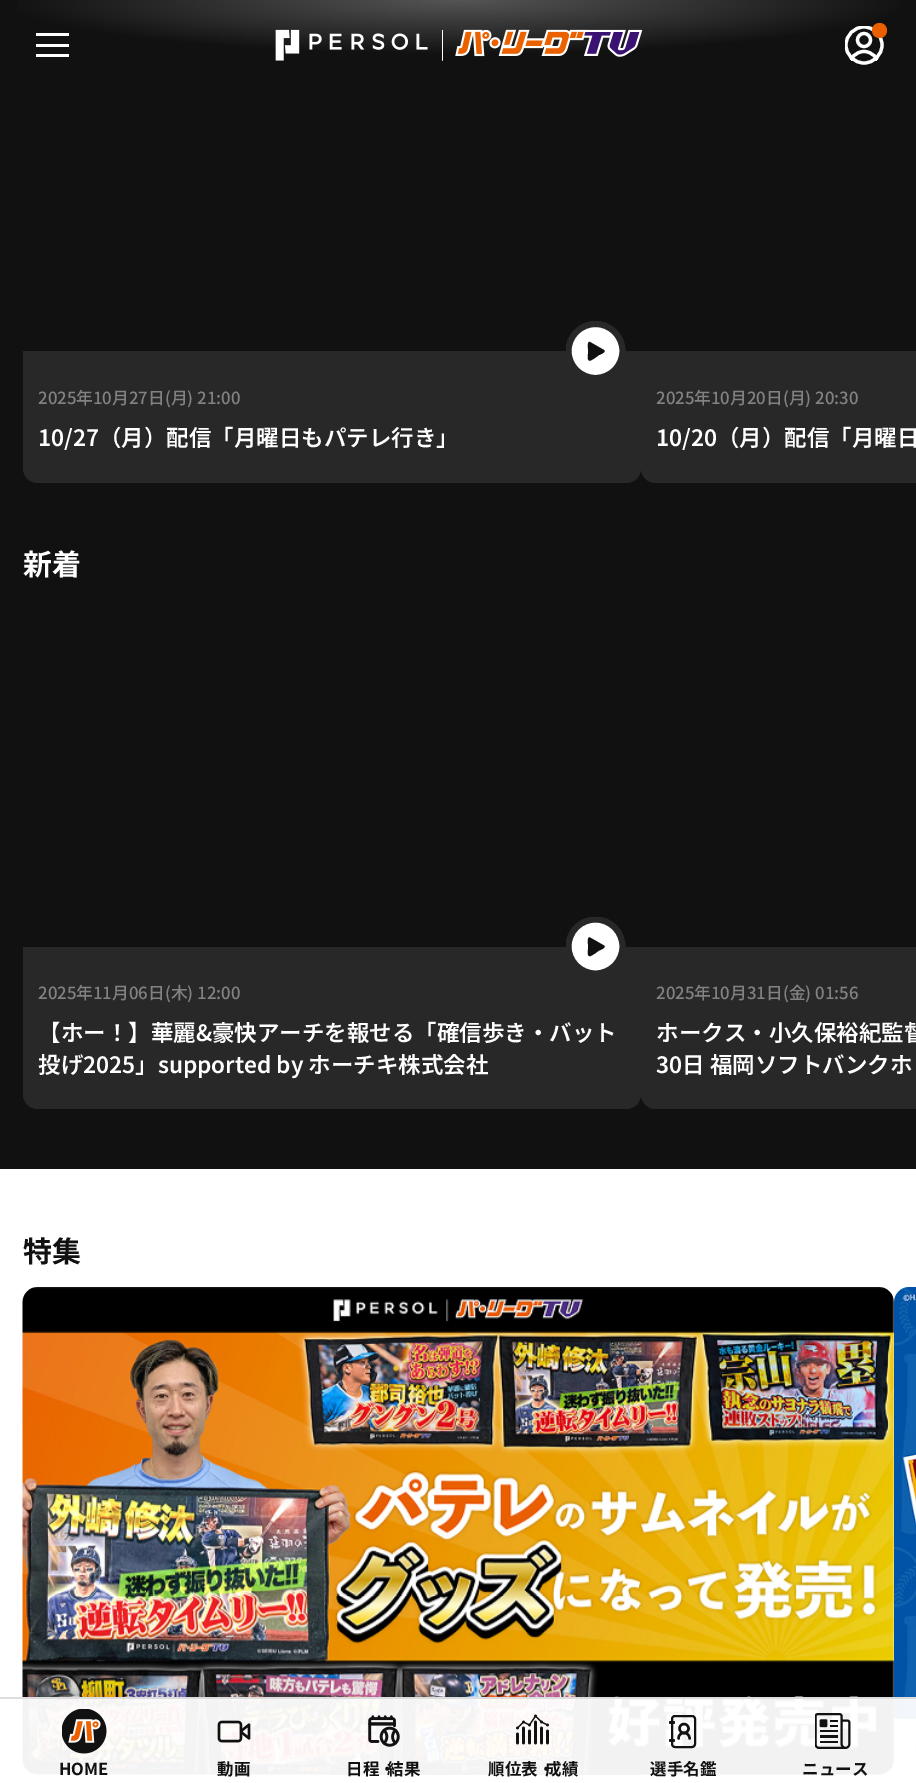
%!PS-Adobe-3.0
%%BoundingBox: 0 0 916 1783
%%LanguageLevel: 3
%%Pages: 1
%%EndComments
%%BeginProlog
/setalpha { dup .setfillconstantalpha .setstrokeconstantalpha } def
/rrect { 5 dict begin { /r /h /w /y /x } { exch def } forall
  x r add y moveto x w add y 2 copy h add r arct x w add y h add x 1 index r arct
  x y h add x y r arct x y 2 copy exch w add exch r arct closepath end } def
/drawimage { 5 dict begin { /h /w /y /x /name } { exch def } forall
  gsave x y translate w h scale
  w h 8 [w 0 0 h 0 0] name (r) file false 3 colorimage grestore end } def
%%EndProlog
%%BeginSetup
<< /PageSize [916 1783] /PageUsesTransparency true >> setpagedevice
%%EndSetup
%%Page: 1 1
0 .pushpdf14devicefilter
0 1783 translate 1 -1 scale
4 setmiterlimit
1 setgray
0 0 916 1783 rectfill
0.067 setgray
0 0 916 1169 rectfill
gsave newpath 18 0 moveto 900 0 lineto 900 52 lineto 18 52 lineto closepath clip newpath 459 0 translate 458 54 scale
<< /ShadingType 3 /ColorSpace /DeviceRGB /Coords [0 0 0 0 0 1] /Extend [true true] /Function << /FunctionType 2 /Domain [0 1] /C0 [0.333 0.333 0.333] /C1 [0.067 0.067 0.067] /N 1 >> >> shfill grestore
1 setgray
36 33 33 3 rectfill
36 44 33 3 rectfill
36 54 33 3 rectfill
(images/1.raw) 275 29 368 32 drawimage
gsave
845 26 39 39 rectclip
3.2 setlinewidth
newpath 864 45 18 0 360 arc closepath stroke
grestore
3.2 setlinewidth
newpath 864 40 6.5 0 360 arc closepath stroke
0.918 0.376 0 setrgbcolor
newpath 879.5 30.5 7.5 0 360 arc closepath fill
gsave
newpath 864 25.5 moveto 875 25.5 883.5 34 883.5 45 curveto 883.5 56 875 64.5 864 64.5 curveto 853 64.5 844.5 56 844.5 45 curveto 844.5 34 853 25.5 864 25.5 curveto closepath clip newpath
1 setgray
newpath 864 66 14.5 0 360 arc closepath stroke
grestore
0.157 setgray
newpath 23 351 moveto 641 351 lineto 641 468 lineto 641 476.5 634.5 483 626 483 curveto 38 483 lineto 29.5 483 23 476.5 23 468 curveto closepath fill
1 setgray
newpath 596 352 28 0 360 arc closepath fill
gsave
566 321 60 60 rectclip
0.157 setgray
6 setlinewidth
newpath 595.5 351 27 0 360 arc closepath stroke
grestore
0.063 setgray
newpath 604 350 moveto 607 352 599.5 355 599 355 curveto 595 358 lineto 593.5 358.5 590.5 361.5 589 360.5 curveto 587 359.5 588 355 588 354 curveto 588 348.5 lineto 588 348.5 587 340.5 590 342 curveto closepath fill
0.157 setgray
newpath 641 351 moveto 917 351 lineto 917 483 lineto 656 483 lineto 647.5 483 641 476.5 641 468 curveto closepath fill
newpath 23 947 moveto 641 947 lineto 641 1094 lineto 641 1102.5 634.5 1109 626 1109 curveto 38 1109 lineto 29.5 1109 23 1102.5 23 1094 curveto closepath fill
1 setgray
newpath 596 947 28 0 360 arc closepath fill
gsave
566 917 60 60 rectclip
0.157 setgray
6 setlinewidth
newpath 595.5 946.5 27 0 360 arc closepath stroke
grestore
0.063 setgray
newpath 604 945.5 moveto 607 947.5 599.5 950.5 599 950.5 curveto 595 953.5 lineto 593.5 954 590.5 957 589 956 curveto 587 955 588 950.5 588 949.5 curveto 588 944 lineto 588 944 587 936 590 937.5 curveto closepath fill
0.157 setgray
newpath 641 947 moveto 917 947 lineto 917 1109 lineto 656 1109 lineto 647.5 1109 641 1102.5 641 1094 curveto closepath fill
(images/2.raw) 22 1287 872 488 drawimage
(images/3.raw) 894 1287 22 466 drawimage
0.95 setalpha
1 setgray
22 1699 894 76 rectfill
1 setalpha
0.867 setgray
0 1697 916 2 rectfill
(images/4.raw) 62 1709 45 45 drawimage
(images/5.raw) 217 1720 34 23 drawimage
(images/6.raw) 368 1715 32 32 drawimage
(images/7.raw) 516 1714 33 31 drawimage
0.067 setgray
2 setlinewidth
672 1716 23 31 3 rrect stroke
669 1721 6 3 1.5 rrect fill
669 1739 6 3 1.5 rrect fill
2.4 setlinewidth
newpath 684 1728.5 4.5 0 360 arc closepath stroke
1 setlinecap
newpath 678.5 1738.5 moveto 678.5 1731 689.5 1731 689.5 1738.5 curveto stroke
(images/8.raw) 815 1713 36 36 drawimage
/NotoSansJP-Medium [16.75 0 0 -16.75 0 0] selectfont
0.51 setgray
38 404 moveto (2025年10月27日\(月\) 21:00) show
/NotoSansJP-SemiBold [22.5 0 0 -22.5 0 0] selectfont
1 setgray
38 446 moveto (10/27（月）配信「月曜日もパテレ行き」) show
/NotoSansJP-Medium [16.75 0 0 -16.75 0 0] selectfont
0.51 setgray
656 404 moveto (2025年10月20日\(月\) 20:30) show
/NotoSansJP-SemiBold [22.5 0 0 -22.5 0 0] selectfont
1 setgray
656 446 moveto (10/20（月）配信「月曜日) show
/NotoSansJP-Bold [29 0 0 -29 0 0] selectfont
23 575 moveto (新着) show
/NotoSansJP-Medium [16.75 0 0 -16.75 0 0] selectfont
0.51 setgray
38 999 moveto (2025年11月06日\(木\) 12:00) show
/NotoSansJP-SemiBold [22.5 0 0 -22.5 0 0] selectfont
1 setgray
38 1041 moveto (【ホー！】華麗&豪快アーチを報せる「確信歩き・バット) show
38 1073 moveto (投げ2025」supported by ホーチキ株式会社) show
/NotoSansJP-Medium [16.75 0 0 -16.75 0 0] selectfont
0.51 setgray
656 999 moveto (2025年10月31日\(金\) 01:56) show
/NotoSansJP-SemiBold [22.5 0 0 -22.5 0 0] selectfont
1 setgray
656 1041 moveto (ホークス・小久保裕紀監督) show
656 1073 moveto (30日 福岡ソフトバンクホ) show
/NotoSansJP-Bold [29 0 0 -29 0 0] selectfont
0.067 setgray
23 1262 moveto (特集) show
/NotoSansJP-Bold [16.5 0 0 -16.5 0 0] selectfont
59 1775 moveto (HOME) show
217 1775 moveto (動画) show
346 1775 moveto (日程・) show
387 1775 moveto (結果) show
488 1775 moveto (順位表・) show
545 1775 moveto (成績) show
650 1775 moveto (選手名鑑) show
802 1775 moveto (ニュース) show
.poppdf14devicefilter showpage
%%EOF
